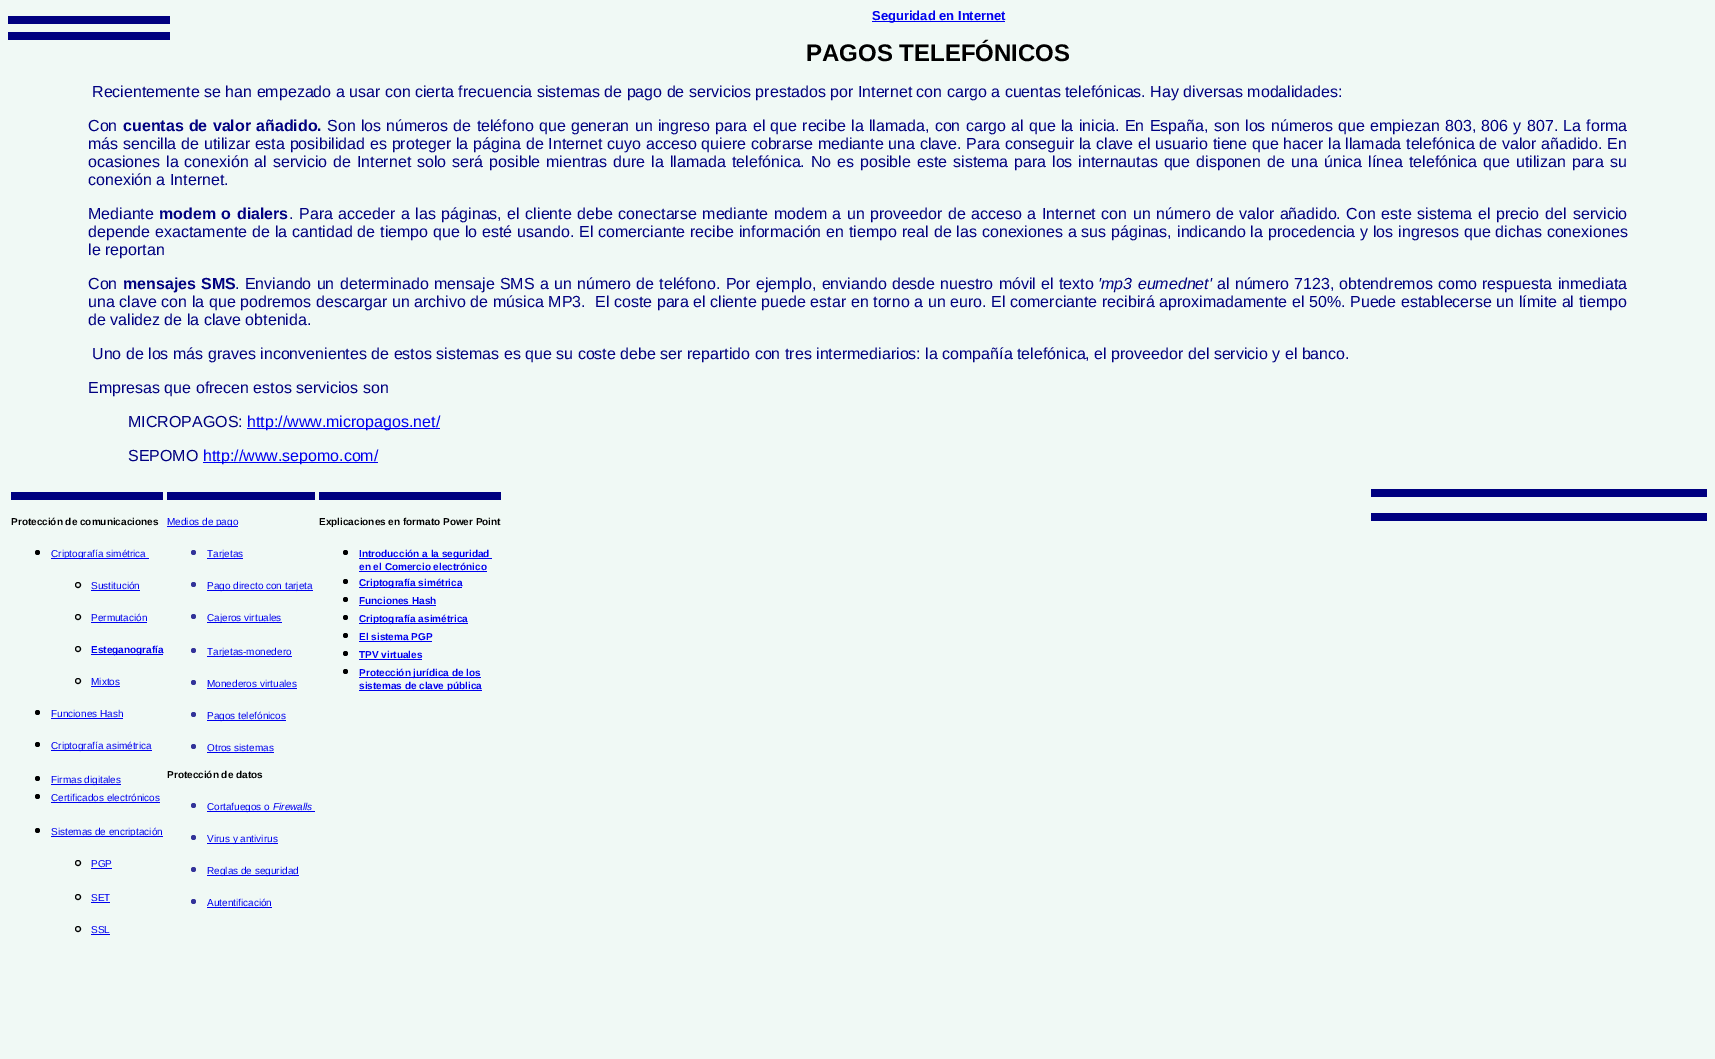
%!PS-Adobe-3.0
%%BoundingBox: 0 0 1715 1059
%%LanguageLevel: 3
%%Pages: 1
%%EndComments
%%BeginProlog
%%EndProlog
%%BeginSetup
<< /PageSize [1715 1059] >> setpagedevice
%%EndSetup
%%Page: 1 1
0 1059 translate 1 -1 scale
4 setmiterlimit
0.941 0.976 0.961 setrgbcolor
0 0 1715 1059 rectfill
0 0 0.502 setrgbcolor
8 16 162 8 rectfill
8 32 162 8 rectfill
0 0 0.933 setrgbcolor
872 21 133 1 rectfill
247 428 193 1 rectfill
203 462 175 1 rectfill
0 0 0.502 setrgbcolor
1371 489 336 8 rectfill
1371 513 336 8 rectfill
11 492 152 8 rectfill
0 setgray
newpath 37.5 552.5 2.5 0 360 arc closepath fill
0 0 0.933 setrgbcolor
51 558 98 1 rectfill
0 setgray
newpath 78 585 2.5 0 360 arc closepath stroke
0 0 0.933 setrgbcolor
91 590 49 1 rectfill
0 setgray
newpath 78 617 2.5 0 360 arc closepath stroke
0 0 0.933 setrgbcolor
91 622 56 1 rectfill
0 setgray
newpath 78 649 2.5 0 360 arc closepath stroke
0 0 0.933 setrgbcolor
91 654 72 1 rectfill
0 setgray
newpath 78 681 2.5 0 360 arc closepath stroke
0 0 0.933 setrgbcolor
91 686 29 1 rectfill
0 setgray
newpath 37.5 712.5 2.5 0 360 arc closepath fill
0 0 0.933 setrgbcolor
51 718 72 1 rectfill
0 setgray
newpath 37.5 744.5 2.5 0 360 arc closepath fill
0 0 0.933 setrgbcolor
51 750 101 1 rectfill
0 setgray
newpath 37.5 778.5 2.5 0 360 arc closepath fill
0 0 0.933 setrgbcolor
51 784 70 1 rectfill
0 setgray
newpath 37.5 796.5 2.5 0 360 arc closepath fill
0 0 0.933 setrgbcolor
51 802 109 1 rectfill
0 setgray
newpath 37.5 830.5 2.5 0 360 arc closepath fill
0 0 0.933 setrgbcolor
51 836 112 1 rectfill
0 setgray
newpath 78 863 2.5 0 360 arc closepath stroke
0 0 0.933 setrgbcolor
91 868 21 1 rectfill
0 setgray
newpath 78 897 2.5 0 360 arc closepath stroke
0 0 0.933 setrgbcolor
91 902 19 1 rectfill
0 setgray
newpath 78 929 2.5 0 360 arc closepath stroke
0 0 0.933 setrgbcolor
91 934 19 1 rectfill
0 0 0.502 setrgbcolor
167 492 148 8 rectfill
0 0 0.933 setrgbcolor
167 526 71 1 rectfill
0.2 0.2 0.6 setrgbcolor
newpath 193.5 552.5 2.5 0 360 arc closepath fill
0 0 0.933 setrgbcolor
207 558 36 1 rectfill
0.2 0.2 0.6 setrgbcolor
newpath 193.5 584.5 2.5 0 360 arc closepath fill
0 0 0.933 setrgbcolor
207 590 106 1 rectfill
0.2 0.2 0.6 setrgbcolor
newpath 193.5 616.5 2.5 0 360 arc closepath fill
0 0 0.933 setrgbcolor
207 622 75 1 rectfill
0.2 0.2 0.6 setrgbcolor
newpath 193.5 650.5 2.5 0 360 arc closepath fill
0 0 0.933 setrgbcolor
207 656 85 1 rectfill
0.2 0.2 0.6 setrgbcolor
newpath 193.5 682.5 2.5 0 360 arc closepath fill
0 0 0.933 setrgbcolor
207 688 90 1 rectfill
0.2 0.2 0.6 setrgbcolor
newpath 193.5 714.5 2.5 0 360 arc closepath fill
0 0 0.933 setrgbcolor
207 720 79 1 rectfill
0.2 0.2 0.6 setrgbcolor
newpath 193.5 746.5 2.5 0 360 arc closepath fill
0 0 0.933 setrgbcolor
207 752 67 1 rectfill
0.2 0.2 0.6 setrgbcolor
newpath 193.5 805.5 2.5 0 360 arc closepath fill
0 0 0.933 setrgbcolor
207 811 108 1 rectfill
0.2 0.2 0.6 setrgbcolor
newpath 193.5 837.5 2.5 0 360 arc closepath fill
0 0 0.933 setrgbcolor
207 843 39 1 rectfill
246 843 32 1 rectfill
0.2 0.2 0.6 setrgbcolor
newpath 193.5 869.5 2.5 0 360 arc closepath fill
0 0 0.933 setrgbcolor
207 875 92 1 rectfill
0.2 0.2 0.6 setrgbcolor
newpath 193.5 901.5 2.5 0 360 arc closepath fill
0 0 0.933 setrgbcolor
207 907 65 1 rectfill
0 0 0.502 setrgbcolor
319 492 182 8 rectfill
0 setgray
newpath 345.5 552.5 2.5 0 360 arc closepath fill
0 0 0.933 setrgbcolor
359 558 133 1 rectfill
359 571 128 1 rectfill
0 setgray
newpath 345.5 581.5 2.5 0 360 arc closepath fill
0 0 0.933 setrgbcolor
359 587 103 1 rectfill
0 setgray
newpath 345.5 599.5 2.5 0 360 arc closepath fill
0 0 0.933 setrgbcolor
359 605 77 1 rectfill
0 setgray
newpath 345.5 617.5 2.5 0 360 arc closepath fill
0 0 0.933 setrgbcolor
359 623 109 1 rectfill
0 setgray
newpath 345.5 635.5 2.5 0 360 arc closepath fill
0 0 0.933 setrgbcolor
359 641 73 1 rectfill
0 setgray
newpath 345.5 653.5 2.5 0 360 arc closepath fill
0 0 0.933 setrgbcolor
359 659 63 1 rectfill
0 setgray
newpath 345.5 671.5 2.5 0 360 arc closepath fill
0 0 0.933 setrgbcolor
359 677 122 1 rectfill
359 690 123 1 rectfill
/LiberationSans-Bold [13 0 0 -13 0 0] selectfont
872 20 moveto (Seguridad en Internet) show
/LiberationSans-Bold [24 0 0 -24 0 0] selectfont
0 setgray
806 61 moveto (PAGOS TELEFÓNICOS) show
/LiberationSans-Regular [16 0 0 -16 0 0] selectfont
0 0 0.502 setrgbcolor
92 97 moveto (Recientemente se han empezado a usar con cierta frecuencia sistemas de pago de servicios prestados por Internet con cargo a cuentas telefónicas. Hay diversas modalidades:) show
88 131 moveto (Con) show
/LiberationSans-Bold [16 0 0 -16 0 0] selectfont
123 131 moveto 0.8 0 32 (cuentas de valor añadido.) widthshow
/LiberationSans-Regular [16 0 0 -16 0 0] selectfont
327 131 moveto 0.8 0 32 (Son los) widthshow
386 131 moveto 0.8 0 32 (números de teléfono que generan un ingreso para el que recibe la llamada, con) widthshow
966 131 moveto 0.8 0 32 (cargo al que la inicia. En España) widthshow
1204 131 moveto (,) show
1214 131 moveto 0.8 0 32 (son los números que empiezan) widthshow
1445 131 moveto 0.8 0 32 (803, 806) widthshow
1513 131 moveto (y) show
1527 131 moveto (807.) show
1563 131 moveto 1 0 32 (La forma) widthshow
88 149 moveto 0.3 0 32 (más sencilla de utilizar esta posibilidad es proteger la página de Internet cuyo acceso quiere cobrarse mediante una clave. Para conseguir la clave el usuario tiene que hacer la llamada telefónica de valor añadido. En) widthshow
88 167 moveto (ocasiones) show
166 167 moveto 1.5 0 32 (la conexión al servicio de Internet solo será posible mientras dure la llamada) widthshow
732 167 moveto 1.5 0 32 (telefónica. No es posible este sistema para los internautas que disponen de una) widthshow
1324 167 moveto 1.5 0 32 (única línea telefónica que utilizan para su) widthshow
88 185 moveto (conexión a Internet.) show
88 219 moveto (Mediante) show
/LiberationSans-Bold [16 0 0 -16 0 0] selectfont
159 219 moveto 1.1 0 32 (modem o dialers) widthshow
/LiberationSans-Regular [16 0 0 -16 0 0] selectfont
289 219 moveto 1.1 0 32 (. Para acceder) widthshow
401 219 moveto 1.1 0 32 (a las páginas, el cliente debe conectarse mediante modem a un proveedor de) widthshow
971 219 moveto 1.1 0 32 (acceso a Internet con un número de valor añadido. Con este sistema el precio del) widthshow
1573 219 moveto (servicio) show
88 237 moveto 0.5 0 32 (depende exactamente de la cantidad de tiempo que lo esté usando. El) widthshow
598 237 moveto 0.5 0 32 (comerciante recibe información en tiempo real de las conexiones a sus páginas,) widthshow
1177 237 moveto 0.5 0 32 (indicando la procedencia y los ingresos que dichas conexiones) widthshow
88 255 moveto (le reportan) show
88 289 moveto (Con) show
/LiberationSans-Bold [16 0 0 -16 0 0] selectfont
123 289 moveto 1 0 32 (mensajes SMS) widthshow
/LiberationSans-Regular [16 0 0 -16 0 0] selectfont
235 289 moveto 0.75 0 32 (. Enviando un) widthshow
340 289 moveto 0.75 0 32 (determinado mensaje SMS a un número de teléfono. Por ejemplo, enviando desde) widthshow
940 289 moveto 0.75 0 32 (nuestro móvil el texto) widthshow
/LiberationSans-Italic [16 0 0 -16 0 0] selectfont
1098 289 moveto 1 0 32 ('mp3 eumednet') widthshow
/LiberationSans-Regular [16 0 0 -16 0 0] selectfont
1217 289 moveto 0.75 0 32 (al número 7123, obtendremos como) widthshow
1482 289 moveto 1 0 32 (respuesta inmediata) widthshow
88 307 moveto 0.2 0 32 (una clave con la que podremos descargar un archivo de música MP3.  El coste para el cliente puede estar en torno a un euro. El comerciante recibirá aproximadamente el 50%. Puede establecerse un límite al) widthshow
1579 307 moveto (tiempo) show
88 325 moveto (de validez de la clave obtenida.) show
92 359 moveto (Uno de los más graves inconvenientes de estos sistemas es que su coste debe ser repartido con tres intermediarios: la compañía telefónica, el proveedor del servicio y el banco.) show
88 393 moveto (Empresas que ofrecen estos servicios son) show
128 427 moveto (MICROPAGOS:) show
0 0 0.933 setrgbcolor
247 427 moveto (http://www.micropagos.net/) show
0 0 0.502 setrgbcolor
128 461 moveto (SEPOMO) show
0 0 0.933 setrgbcolor
203 461 moveto (http://www.sepomo.com/) show
/LiberationSans-Bold [10 0 0 -10 0 0] selectfont
0 setgray
11 525 moveto (Protección de comunicaciones) show
/LiberationSans-Regular [10 0 0 -10 0 0] selectfont
0 0 0.933 setrgbcolor
51 557 moveto (Criptografía simétrica) show
91 589 moveto (Sustitución) show
91 621 moveto (Permutación) show
/LiberationSans-Bold [10 0 0 -10 0 0] selectfont
91 653 moveto (Esteganografía) show
/LiberationSans-Regular [10 0 0 -10 0 0] selectfont
91 685 moveto (Mixtos) show
51 717 moveto (Funciones Hash) show
51 749 moveto (Criptografía asimétrica) show
51 783 moveto (Firmas digitales) show
51 801 moveto (Certificados electrónicos) show
51 835 moveto (Sistemas de encriptación) show
91 867 moveto (PGP) show
91 901 moveto (SET) show
91 933 moveto (SSL) show
167 525 moveto (Medios de pago) show
207 557 moveto (Tarjetas) show
207 589 moveto (Pago directo con tarjeta) show
207 621 moveto (Cajeros virtuales) show
207 655 moveto (Tarjetas-monedero) show
207 687 moveto (Monederos virtuales) show
207 719 moveto (Pagos telefónicos) show
207 751 moveto (Otros sistemas) show
/LiberationSans-Bold [10 0 0 -10 0 0] selectfont
0 setgray
167 778 moveto (Protección de datos) show
/LiberationSans-Regular [10 0 0 -10 0 0] selectfont
0 0 0.933 setrgbcolor
207 810 moveto (Cortafuegos o) show
/LiberationSans-Italic [10 0 0 -10 0 0] selectfont
273 810 moveto (Firewalls) show
/LiberationSans-Regular [10 0 0 -10 0 0] selectfont
207 842 moveto (Virus y antivirus) show
207 874 moveto (Reglas de seguridad) show
207 906 moveto (Autentificación) show
/LiberationSans-Bold [10 0 0 -10 0 0] selectfont
0 setgray
319 525 moveto (Explicaciones en formato Power Point) show
0 0 0.933 setrgbcolor
359 557 moveto (Introducción a la seguridad) show
359 570 moveto (en el Comercio electrónico) show
359 586 moveto (Criptografía simétrica) show
359 604 moveto (Funciones Hash) show
359 622 moveto (Criptografía asimétrica) show
359 640 moveto (El sistema PGP) show
359 658 moveto (TPV virtuales) show
359 676 moveto (Protección jurídica de los) show
359 689 moveto (sistemas de clave pública) show
showpage
%%EOF
